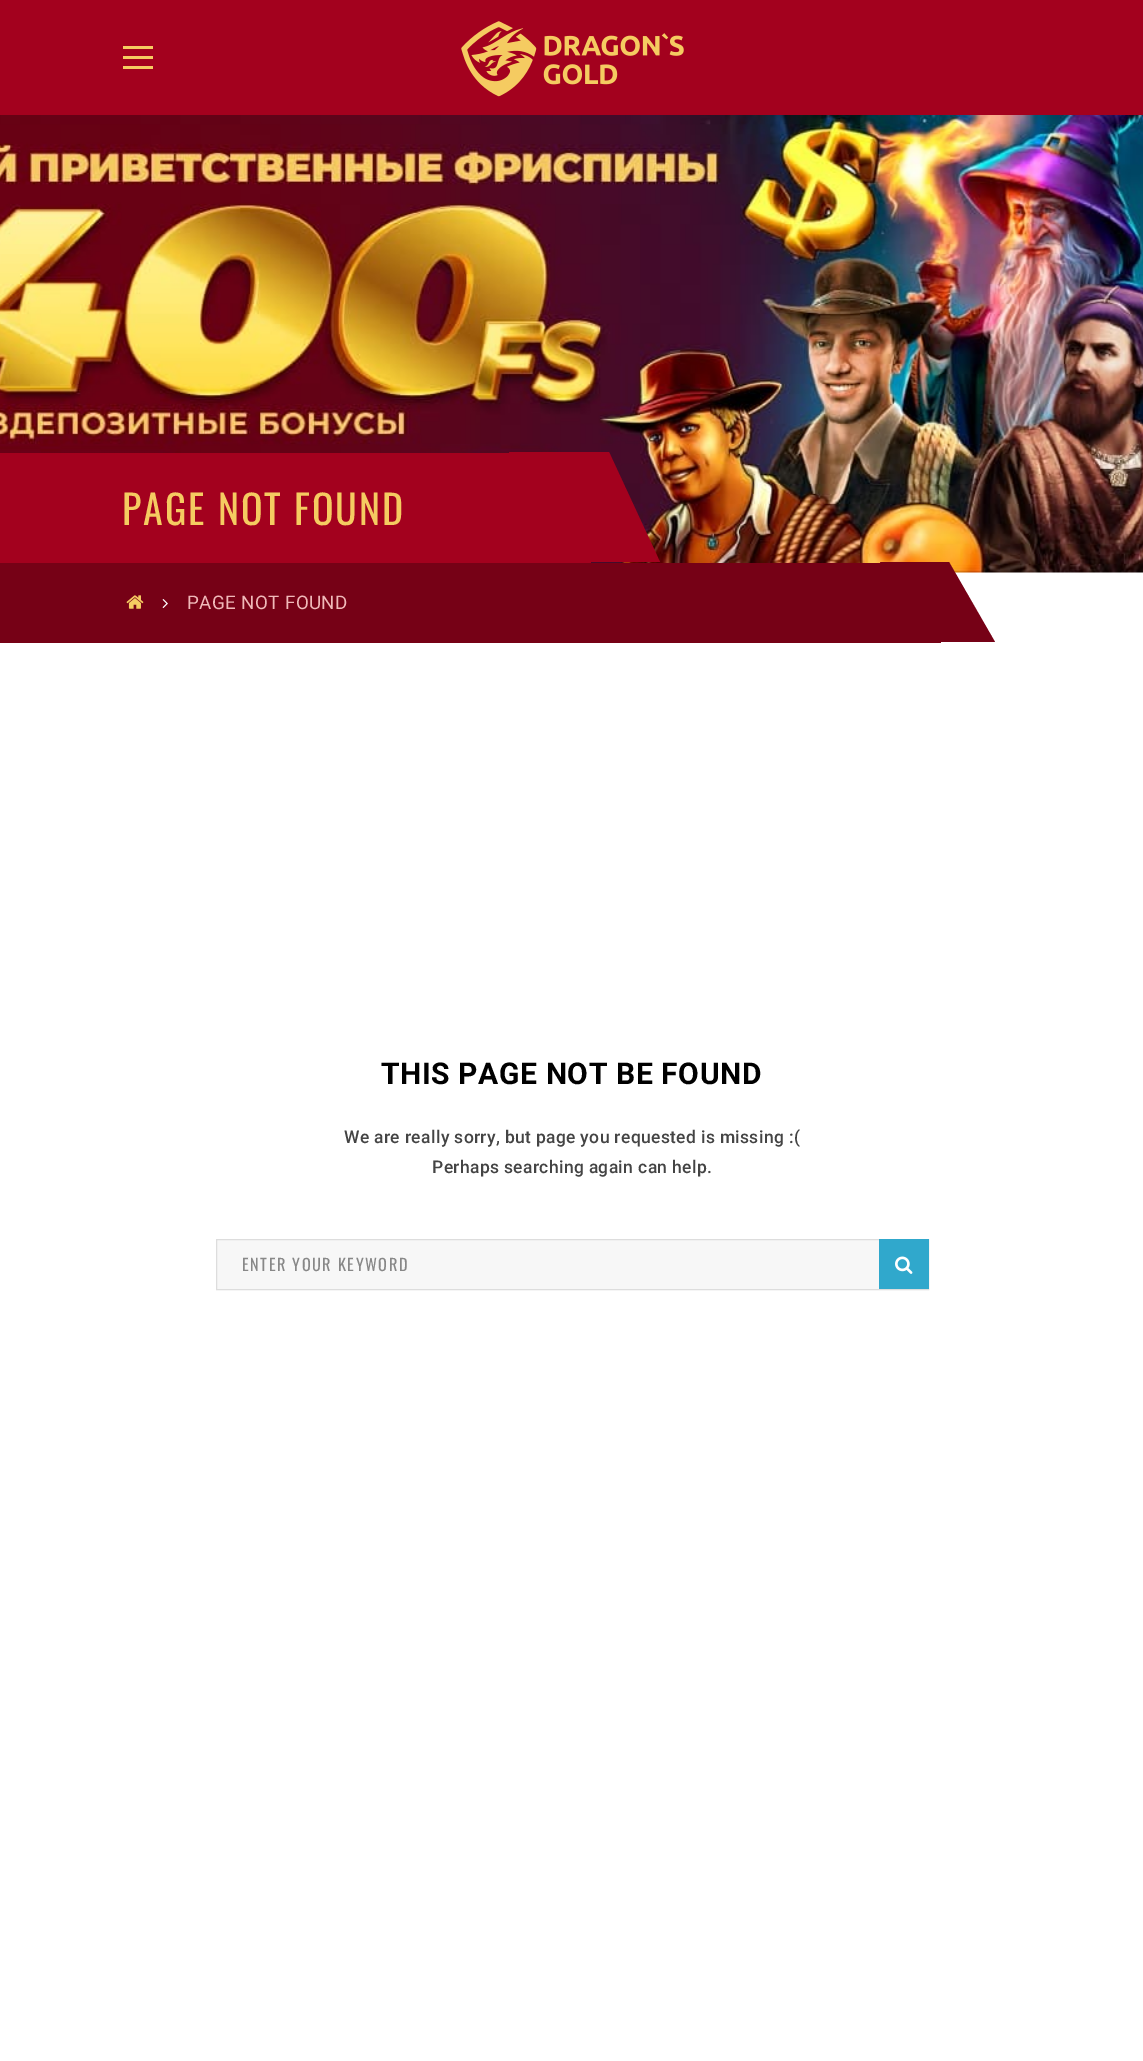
%!PS-Adobe-3.0
%%BoundingBox: 0 0 1143 2061
%%LanguageLevel: 3
%%Pages: 1
%%EndComments
%%BeginProlog
/drawimage { 5 dict begin { /h /w /y /x /name } { exch def } forall
  gsave x y translate w h scale
  w h 8 [w 0 0 h 0 0] name (r) file false 3 colorimage grestore end } def
%%EndProlog
%%BeginSetup
<< /PageSize [1143 2061] >> setpagedevice
%%EndSetup
%%Page: 1 1
0 2061 translate 1 -1 scale
4 setmiterlimit
1 setgray
0 0 1143 2061 rectfill
0.639 0.004 0.118 setrgbcolor
0 0 1143 115 rectfill
0.961 0.796 0.38 setrgbcolor
123 46 30 3 rectfill
123 56 30 3 rectfill
123 66 30 3 rectfill
(images/1.raw) 461 21 223 76 drawimage
(images/2.raw) 0 115 1143 458 drawimage
0.639 0.004 0.118 setrgbcolor
0 453 591 110 rectfill
newpath 509 452 moveto 609 452 lineto 660 562 lineto 560 562 lineto closepath fill
0.463 0.004 0.086 setrgbcolor
0 563 941 80 rectfill
(images/3.raw) 126 595 18 14 drawimage
(images/4.raw) 162 599 6 9 drawimage
newpath 880 562 moveto 949 562 lineto 995 642 lineto 926 642 lineto closepath fill
0.969 setgray
217 1240 662 49 rectfill
0.867 setgray
216.5 1239.5 712 50 rectstroke
0.188 0.659 0.8 setrgbcolor
879 1239 50 50 rectfill
(images/5.raw) 895 1256 18 18 drawimage
/Oswald-Regular [40 0 0 -40 0 0] selectfont
0.961 0.796 0.38 setrgbcolor
122 525 moveto 2 0 (PAGE NOT FOUND) ashow
/Roboto-Regular [18.75 0 0 -18.75 0 0] selectfont
0.941 0.725 0.725 setrgbcolor
187 609 moveto 0.4 0 (PAGE NOT FOUND) ashow
/Roboto-Bold [30 0 0 -30 0 0] selectfont
0 setgray
381 1084 moveto 0.6 0 (THIS PAGE NOT BE FOUND) ashow
/Roboto-Medium [17.5 0 0 -17.5 0 0] selectfont
0.267 setgray
344 1143 moveto 0.35 0 (We are really sorry, but page you requested is missing :\() ashow
432 1173 moveto 0.35 0 (Perhaps searching again can help.) ashow
gsave
243 1251 633 25 rectclip
/Oswald-Regular [16.25 0 0 -16.25 0 0] selectfont
0.533 setgray
242 1271 moveto 1.6 0 (ENTER YOUR KEYWORD) ashow
grestore
showpage
%%EOF
